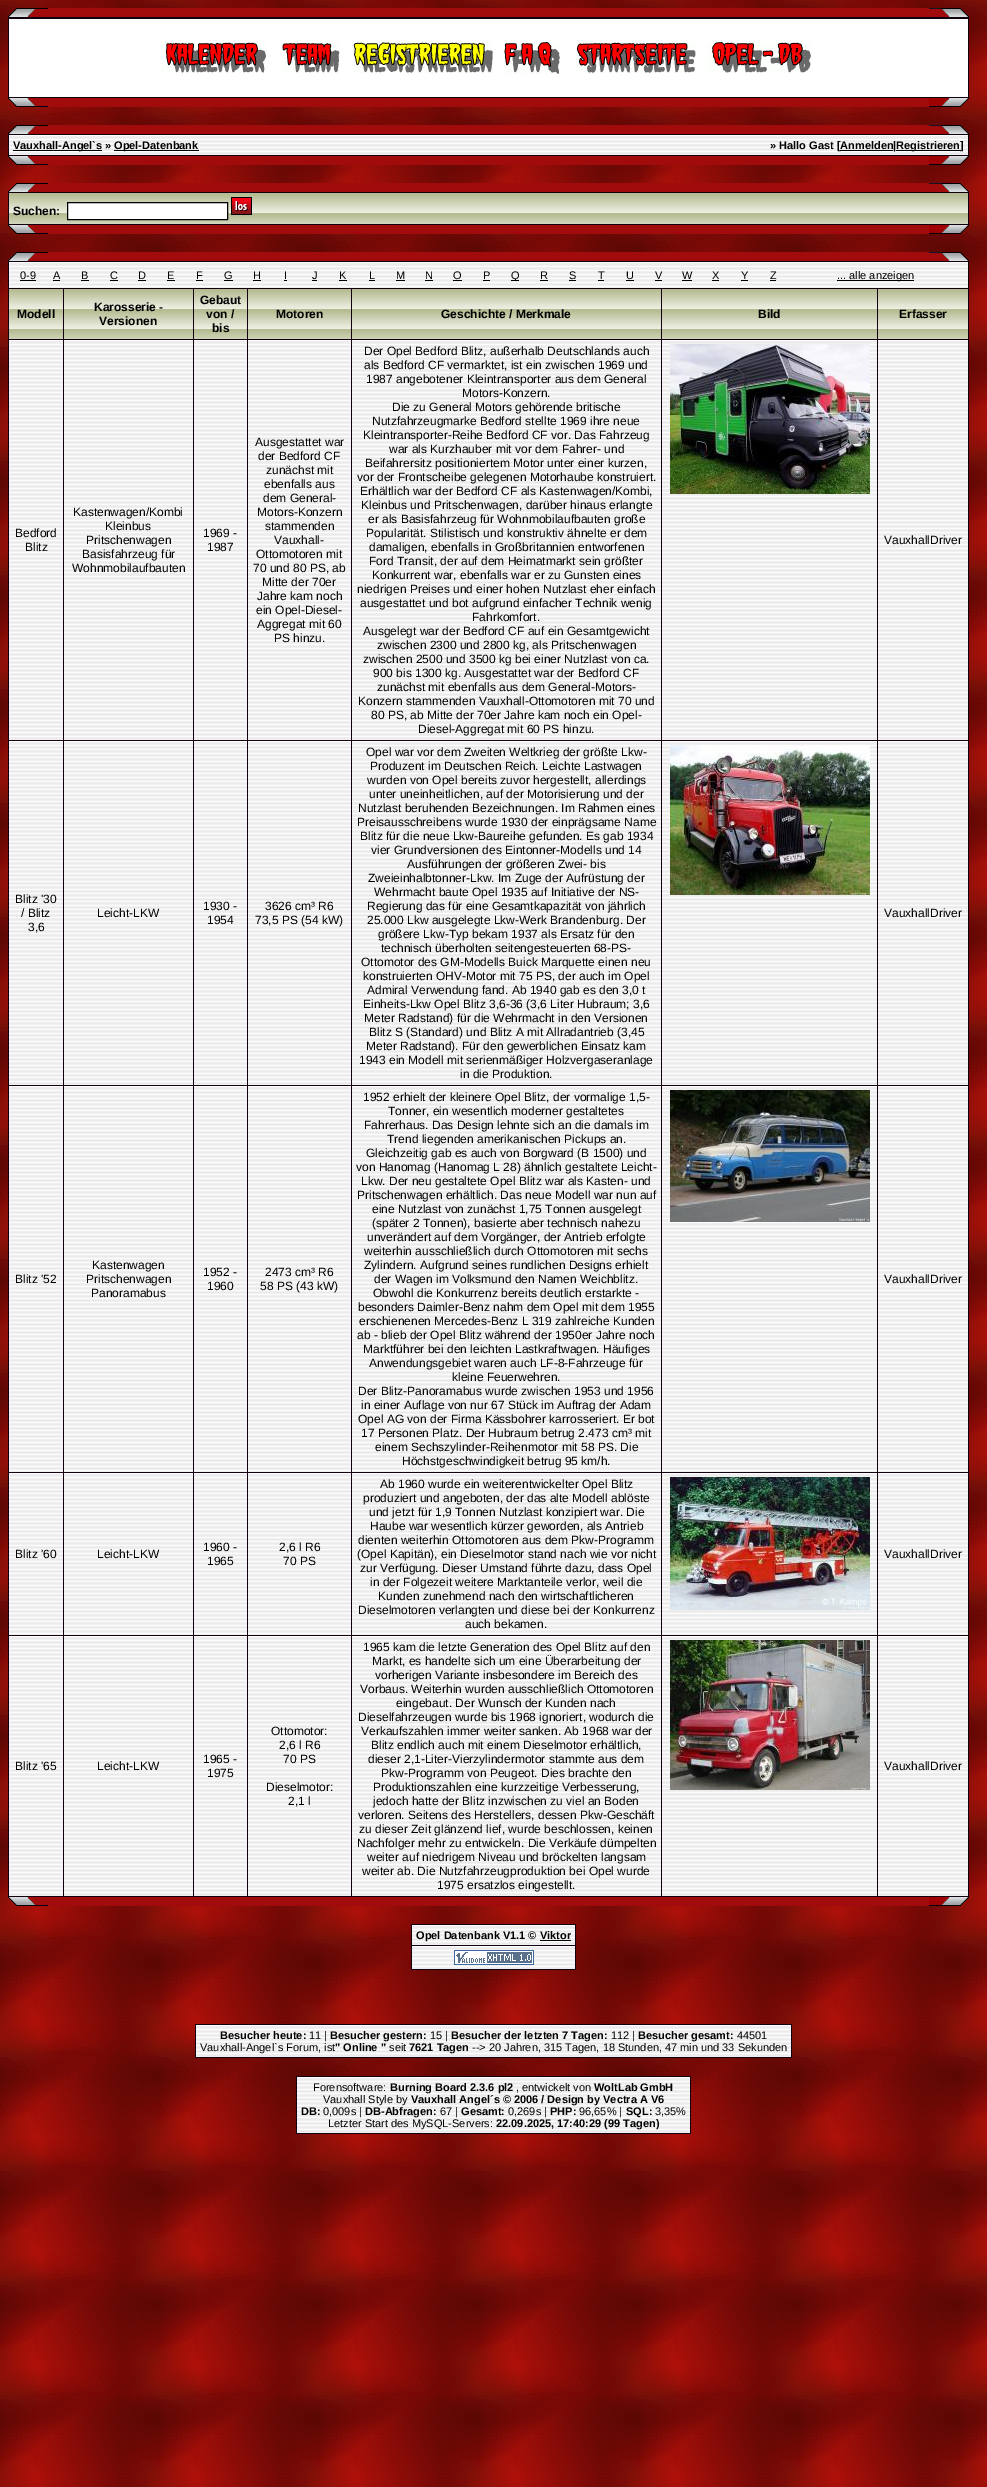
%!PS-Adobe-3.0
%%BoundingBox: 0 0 987 2487
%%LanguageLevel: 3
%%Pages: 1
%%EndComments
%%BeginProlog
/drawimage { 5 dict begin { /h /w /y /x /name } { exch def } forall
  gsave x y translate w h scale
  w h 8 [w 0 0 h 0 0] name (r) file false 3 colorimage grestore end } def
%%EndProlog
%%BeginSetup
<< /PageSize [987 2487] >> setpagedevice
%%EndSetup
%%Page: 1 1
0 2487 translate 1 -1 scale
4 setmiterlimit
1 setgray
0 0 987 2487 rectfill
(images/1.raw) 0 0 987 2487 drawimage
(images/2.raw) 8 8 40 9 drawimage
0.635 0.043 0.043 setrgbcolor
48 8 881 9 rectfill
(images/3.raw) 929 8 40 9 drawimage
0.075 0 0.067 setrgbcolor
8 17 961 81 rectfill
1 setgray
9 19 959 78 rectfill
(images/4.raw) 161 42 105 31 drawimage
(images/5.raw) 282 43 58 30 drawimage
(images/6.raw) 353 41 140 32 drawimage
(images/7.raw) 504 42 56 32 drawimage
(images/8.raw) 576 42 120 31 drawimage
(images/9.raw) 707 42 104 31 drawimage
(images/10.raw) 8 98 40 9 drawimage
0.635 0.043 0.043 setrgbcolor
48 98 881 9 rectfill
(images/11.raw) 929 98 40 9 drawimage
(images/12.raw) 8 125 40 9 drawimage
48 125 881 9 rectfill
(images/13.raw) 929 125 40 9 drawimage
0.075 0 0.067 setrgbcolor
8 134 961 22 rectfill
1 setgray
9 135 959 1 rectfill
(images/14.raw) 9 136 959 19 drawimage
0 setgray
13 150 89 1 rectfill
114 150 85 1 rectfill
840 150 53 1 rectfill
896 150 65 1 rectfill
(images/15.raw) 8 156 40 9 drawimage
0.635 0.043 0.043 setrgbcolor
48 156 881 9 rectfill
(images/16.raw) 929 156 40 9 drawimage
(images/17.raw) 8 183 40 9 drawimage
48 183 881 9 rectfill
(images/18.raw) 929 183 40 9 drawimage
0.075 0 0.067 setrgbcolor
8 192 961 33 rectfill
(images/19.raw) 9 193 959 31 drawimage
1 setgray
newpath 67.5 202.5 moveto 227.5 202.5 lineto 227.5 219.5 lineto 67.5 219.5 lineto closepath gsave fill grestore
0 setgray
stroke
(images/20.raw) 231 197 21 18 drawimage
(images/21.raw) 8 225 40 9 drawimage
0.635 0.043 0.043 setrgbcolor
48 225 881 9 rectfill
(images/22.raw) 929 225 40 9 drawimage
(images/23.raw) 8 252 40 9 drawimage
48 252 881 9 rectfill
(images/24.raw) 929 252 40 9 drawimage
0.075 0 0.067 setrgbcolor
8 261 961 1636 rectfill
1 setgray
9 262 959 1 rectfill
(images/25.raw) 9 263 959 25 drawimage
0 setgray
20 280 16 1 rectfill
53 280 7 1 rectfill
81 280 8 1 rectfill
110 280 8 1 rectfill
138 280 8 1 rectfill
167 280 8 1 rectfill
196 280 7 1 rectfill
224 280 9 1 rectfill
253 280 8 1 rectfill
284 280 3 1 rectfill
312 280 5 1 rectfill
339 280 8 1 rectfill
369 280 6 1 rectfill
396 280 9 1 rectfill
425 280 8 1 rectfill
453 280 9 1 rectfill
483 280 7 1 rectfill
511 280 8 1 rectfill
540 280 8 1 rectfill
569 280 7 1 rectfill
598 280 6 1 rectfill
626 280 8 1 rectfill
655 280 7 1 rectfill
682 280 10 1 rectfill
712 280 7 1 rectfill
741 280 7 1 rectfill
770 280 6 1 rectfill
837 280 77 1 rectfill
(images/26.raw) 9 289 54 50 drawimage
(images/27.raw) 64 289 129 50 drawimage
(images/28.raw) 194 289 53 50 drawimage
(images/29.raw) 248 289 103 50 drawimage
(images/30.raw) 352 289 309 50 drawimage
(images/31.raw) 662 289 215 50 drawimage
(images/32.raw) 878 289 90 50 drawimage
1 setgray
9 340 54 1 rectfill
(images/33.raw) 9 341 54 399 drawimage
64 340 129 1 rectfill
(images/34.raw) 64 341 129 399 drawimage
194 340 53 1 rectfill
(images/35.raw) 194 341 53 399 drawimage
248 340 103 1 rectfill
(images/36.raw) 248 341 103 399 drawimage
352 340 309 1 rectfill
(images/37.raw) 352 341 309 399 drawimage
662 340 215 1 rectfill
(images/38.raw) 662 341 215 399 drawimage
(images/39.raw) 670 344 200 150 drawimage
878 340 90 1 rectfill
(images/40.raw) 878 341 90 399 drawimage
9 741 54 1 rectfill
(images/41.raw) 9 742 54 343 drawimage
64 741 129 1 rectfill
(images/42.raw) 64 742 129 343 drawimage
194 741 53 1 rectfill
(images/43.raw) 194 742 53 343 drawimage
248 741 103 1 rectfill
(images/44.raw) 248 742 103 343 drawimage
352 741 309 1 rectfill
(images/45.raw) 352 742 309 343 drawimage
662 741 215 1 rectfill
(images/46.raw) 662 742 215 343 drawimage
(images/47.raw) 670 745 200 150 drawimage
878 741 90 1 rectfill
(images/48.raw) 878 742 90 343 drawimage
9 1086 54 1 rectfill
(images/49.raw) 9 1087 54 385 drawimage
64 1086 129 1 rectfill
(images/50.raw) 64 1087 129 385 drawimage
194 1086 53 1 rectfill
(images/51.raw) 194 1087 53 385 drawimage
248 1086 103 1 rectfill
(images/52.raw) 248 1087 103 385 drawimage
352 1086 309 1 rectfill
(images/53.raw) 352 1087 309 385 drawimage
662 1086 215 1 rectfill
(images/54.raw) 662 1087 215 385 drawimage
(images/55.raw) 670 1090 200 132 drawimage
878 1086 90 1 rectfill
(images/56.raw) 878 1087 90 385 drawimage
9 1473 54 1 rectfill
(images/57.raw) 9 1474 54 161 drawimage
64 1473 129 1 rectfill
(images/58.raw) 64 1474 129 161 drawimage
194 1473 53 1 rectfill
(images/59.raw) 194 1474 53 161 drawimage
248 1473 103 1 rectfill
(images/60.raw) 248 1474 103 161 drawimage
352 1473 309 1 rectfill
(images/61.raw) 352 1474 309 161 drawimage
662 1473 215 1 rectfill
(images/62.raw) 662 1474 215 161 drawimage
(images/63.raw) 670 1477 200 133 drawimage
878 1473 90 1 rectfill
(images/64.raw) 878 1474 90 161 drawimage
9 1636 54 1 rectfill
(images/65.raw) 9 1637 54 259 drawimage
64 1636 129 1 rectfill
(images/66.raw) 64 1637 129 259 drawimage
194 1636 53 1 rectfill
(images/67.raw) 194 1637 53 259 drawimage
248 1636 103 1 rectfill
(images/68.raw) 248 1637 103 259 drawimage
352 1636 309 1 rectfill
(images/69.raw) 352 1637 309 259 drawimage
662 1636 215 1 rectfill
(images/70.raw) 662 1637 215 259 drawimage
(images/71.raw) 670 1640 200 150 drawimage
878 1636 90 1 rectfill
(images/72.raw) 878 1637 90 259 drawimage
(images/73.raw) 8 1897 40 9 drawimage
0.635 0.043 0.043 setrgbcolor
48 1897 881 9 rectfill
(images/74.raw) 929 1897 40 9 drawimage
0.075 0 0.067 setrgbcolor
411 1924 165 46 rectfill
1 setgray
412 1925 163 1 rectfill
(images/75.raw) 412 1926 163 19 drawimage
0 setgray
540 1940 31 1 rectfill
1 setgray
412 1946 163 1 rectfill
(images/76.raw) 412 1947 163 22 drawimage
(images/77.raw) 454 1950 80 15 drawimage
0.075 0 0.067 setrgbcolor
195 2024 597 34 rectfill
1 setgray
196 2025 595 1 rectfill
(images/78.raw) 196 2026 595 31 drawimage
0.075 0 0.067 setrgbcolor
296 2076 395 58 rectfill
1 setgray
297 2077 393 1 rectfill
(images/79.raw) 297 2078 393 55 drawimage
/LiberationSans-Bold [11 0 0 -11 0 0] selectfont
0 setgray
13 149 moveto (Vauxhall-Angel`s ») show
114 149 moveto (Opel-Datenbank) show
770 149 moveto (» Hallo Gast [Anmelden|) show
896 149 moveto (Registrieren]) show
/LiberationSans-Bold [12 0 0 -12 0 0] selectfont
13 215 moveto (Suchen:) show
/LiberationSans-Regular [11 0 0 -11 0 0] selectfont
20 279 moveto (0-9) show
53 279 moveto (A) show
81 279 moveto (B) show
110 279 moveto (C) show
138 279 moveto (D) show
167 279 moveto (E) show
196 279 moveto (F) show
224 279 moveto (G) show
253 279 moveto (H) show
284 279 moveto (I) show
312 279 moveto (J) show
339 279 moveto (K) show
369 279 moveto (L) show
396 279 moveto (M) show
425 279 moveto (N) show
453 279 moveto (O) show
483 279 moveto (P) show
511 279 moveto (Q) show
540 279 moveto (R) show
569 279 moveto (S) show
598 279 moveto (T) show
626 279 moveto (U) show
655 279 moveto (V) show
682 279 moveto (W) show
712 279 moveto (X) show
741 279 moveto (Y) show
770 279 moveto (Z) show
837 279 moveto (... alle anzeigen) show
/LiberationSans-Bold [12 0 0 -12 0 0] selectfont
17 318 moveto (Modell) show
94 311 moveto (Karosserie -) show
99 325 moveto (Versionen) show
200 304 moveto (Gebaut) show
206 318 moveto (von /) show
212 332 moveto (bis) show
276 318 moveto (Motoren) show
441 318 moveto (Geschichte / Merkmale) show
758 318 moveto (Bild) show
899 318 moveto (Erfasser) show
/LiberationSans-Regular [12 0 0 -12 0 0] selectfont
15 537 moveto (Bedford) show
25 551 moveto (Blitz) show
73 516 moveto (Kastenwagen/Kombi) show
105 530 moveto (Kleinbus) show
86 544 moveto (Pritschenwagen) show
82 558 moveto (Basisfahrzeug für) show
72 572 moveto (Wohnmobilaufbauten) show
203 537 moveto (1969 -) show
207 551 moveto (1987) show
255 446 moveto (Ausgestattet war) show
258 460 moveto (der Bedford CF) show
266 474 moveto (zunächst mit) show
264 488 moveto (ebenfalls aus) show
263 502 moveto (dem General-) show
257 516 moveto (Motors-Konzern) show
265 530 moveto (stammenden) show
274 544 moveto (Vauxhall-) show
256 558 moveto (Ottomotoren mit) show
253 572 moveto (70 und 80 PS, ab) show
262 586 moveto (Mitte der 70er) show
257 600 moveto (Jahre kam noch) show
256 614 moveto (ein Opel-Diesel-) show
257 628 moveto (Aggregat mit 60) show
274 642 moveto (PS hinzu.) show
364 355 moveto (Der Opel Bedford Blitz, außerhalb Deutschlands auch) show
364 369 moveto (als Bedford CF vermarktet, ist ein zwischen 1969 und) show
366 383 moveto (1987 angebotener Kleintransporter aus dem General) show
462 397 moveto (Motors-Konzern.) show
392 411 moveto (Die zu General Motors gehörende britische) show
372 425 moveto (Nutzfahrzeugmarke Bedford stellte 1969 ihre neue) show
363 439 moveto (Kleintransporter-Reihe Bedford CF vor. Das Fahrzeug) show
389 453 moveto (war als Kurzhauber mit vor dem Fahrer- und) show
365 467 moveto (Beifahrersitz positioniertem Motor unter einer kurzen,) show
357 481 moveto (vor der Frontscheibe gelegenen Motorhaube konstruiert.) show
360 495 moveto (Erhältlich war der Bedford CF als Kastenwagen/Kombi,) show
361 509 moveto (Kleinbus und Pritschenwagen, darüber hinaus erlangte) show
368 523 moveto (er als Basisfahrzeug für Wohnmobilaufbauten große) show
366 537 moveto (Popularität. Stilistisch und konstruktiv ähnelte er dem) show
369 551 moveto (damaligen, ebenfalls in Großbritannien entworfenen) show
369 565 moveto (Ford Transit, der auf dem Heimatmarkt sein größter) show
372 579 moveto (Konkurrent war, ebenfalls war er zu Gunsten eines) show
357 593 moveto (niedrigen Preises und einer hohen Nutzlast eher einfach) show
360 607 moveto (ausgestattet und bot aufgrund einfacher Technik wenig) show
472 621 moveto (Fahrkomfort.) show
363 635 moveto (Ausgelegt war der Bedford CF auf ein Gesamtgewicht) show
377 649 moveto (zwischen 2300 und 2800 kg, als Pritschenwagen) show
363 663 moveto (zwischen 2500 und 3500 kg bei einer Nutzlast von ca.) show
373 677 moveto (900 bis 1300 kg. Ausgestattet war der Bedford CF) show
377 691 moveto (zunächst mit ebenfalls aus dem General-Motors-) show
358 705 moveto (Konzern stammenden Vauxhall-Ottomotoren mit 70 und) show
371 719 moveto (80 PS, ab Mitte der 70er Jahre kam noch ein Opel-) show
418 733 moveto (Diesel-Aggregat mit 60 PS hinzu.) show
884 544 moveto (VauxhallDriver) show
15 903 moveto (Blitz '30) show
21 917 moveto (/ Blitz) show
28 931 moveto (3,6) show
97 917 moveto (Leicht-LKW) show
203 910 moveto (1930 -) show
207 924 moveto (1954) show
265 910 moveto (3626 cm³ R6) show
255 924 moveto (73,5 PS \(54 kW\)) show
366 756 moveto (Opel war vor dem Zweiten Weltkrieg der größte Lkw-) show
370 770 moveto (Produzent im Deutschen Reich. Leichte Lastwagen) show
367 784 moveto (wurden von Opel bereits zuvor hergestellt, allerdings) show
369 798 moveto (unter uneinheitlichen, auf der Motorisierung und der) show
358 812 moveto (Nutzlast beruhenden Bezeichnungen. Im Rahmen eines) show
357 826 moveto (Preisausschreibens wurde 1930 der einprägsame Name) show
360 840 moveto (Blitz für die neue Lkw-Baureihe gefunden. Es gab 1934) show
371 854 moveto (vier Grundversionen des Eintonner-Modells und 14) show
407 868 moveto (Ausführungen der größeren Zwei- bis) show
368 882 moveto (Zweieinhalbtonner-Lkw. Im Zuge der Aufrüstung der) show
374 896 moveto (Wehrmacht baute Opel 1935 auf Initiative der NS-) show
367 910 moveto (Regierung das für eine Gesamtkapazität von jährlich) show
367 924 moveto (25.000 Lkw ausgelegte Lkw-Werk Brandenburg. Der) show
378 938 moveto (größere Lkw-Typ bekam 1937 als Ersatz für den) show
381 952 moveto (technisch überholten seitengesteuerten 68-PS-) show
361 966 moveto (Ottomotor des GM-Modells Buick Marquette einen neu) show
363 980 moveto (konstruierten OHV-Motor mit 75 PS, der auch im Opel) show
367 994 moveto (Admiral Verwendung fand. Ab 1940 gab es den 3,0 t) show
363 1008 moveto (Einheits-Lkw Opel Blitz 3,6-36 \(3,6 Liter Hubraum; 3,6) show
364 1022 moveto (Meter Radstand\) für die Wehrmacht in den Versionen) show
369 1036 moveto (Blitz S \(Standard\) und Blitz A mit Allradantrieb \(3,45) show
366 1050 moveto (Meter Radstand\). Für den gewerblichen Einsatz kam) show
359 1064 moveto (1943 ein Modell mit serienmäßiger Holzvergaseranlage) show
460 1078 moveto (in die Produktion.) show
884 917 moveto (VauxhallDriver) show
15 1283 moveto (Blitz '52) show
92 1269 moveto (Kastenwagen) show
86 1283 moveto (Pritschenwagen) show
91 1297 moveto (Panoramabus) show
203 1276 moveto (1952 -) show
207 1290 moveto (1960) show
265 1276 moveto (2473 cm³ R6) show
260 1290 moveto (58 PS \(43 kW\)) show
363 1101 moveto (1952 erhielt der kleinere Opel Blitz, der vormalige 1,5-) show
388 1115 moveto (Tonner, ein wesentlich moderner gestaltetes) show
364 1129 moveto (Fahrerhaus. Das Design lehnte sich an die damals im) show
387 1143 moveto (Trend liegenden amerikanischen Pickups an.) show
366 1157 moveto (Gleichzeitig gab es auch von Borgward \(B 1500\) und) show
356 1171 moveto (von Hanomag \(Hanomag L 28\) ähnlich gestaltete Leicht-) show
361 1185 moveto (Lkw. Der neu gestaltete Opel Blitz war als Kasten- und) show
357 1199 moveto (Pritschenwagen erhältlich. Das neue Modell war nun auf) show
372 1213 moveto (eine Nutzlast von zunächst 1,75 Tonnen ausgelegt) show
372 1227 moveto (\(später 2 Tonnen\), basierte aber technisch nahezu) show
367 1241 moveto (unverändert auf dem Vorgänger, der Antrieb erfolgte) show
364 1255 moveto (weiterhin ausschließlich durch Ottomotoren mit sechs) show
364 1269 moveto (Zylindern. Aufgrund seines rundlichen Designs erhielt) show
374 1283 moveto (der Wagen im Volksmund den Namen Weichblitz.) show
373 1297 moveto (Obwohl die Konkurrenz bereits deutlich erstarkte -) show
358 1311 moveto (besonders Daimler-Benz nahm dem Opel mit dem 1955) show
359 1325 moveto (erschienenen Mercedes-Benz L 319 zahlreiche Kunden) show
357 1339 moveto (ab - blieb der Opel Blitz während der 1950er Jahre noch) show
363 1353 moveto (Marktführer bei den leichten Lastkraftwagen. Häufiges) show
369 1367 moveto (Anwendungsgebiet waren auch LF-8-Fahrzeuge für) show
452 1381 moveto (kleine Feuerwehren.) show
358 1395 moveto (Der Blitz-Panoramabus wurde zwischen 1953 und 1956) show
361 1409 moveto (in einer Auflage von nur 67 Stück im Auftrag der Adam) show
358 1423 moveto (Opel AG von der Firma Kässbohrer karrosseriert. Er bot) show
361 1437 moveto (17 Personen Platz. Der Hubraum betrug 2.473 cm³ mit) show
375 1451 moveto (einem Sechszylinder-Reihenmotor mit 58 PS. Die) show
402 1465 moveto (Höchstgeschwindigkeit betrug 95 km/h.) show
884 1283 moveto (VauxhallDriver) show
15 1558 moveto (Blitz '60) show
97 1558 moveto (Leicht-LKW) show
203 1551 moveto (1960 -) show
207 1565 moveto (1965) show
279 1551 moveto (2,6 l R6) show
283 1565 moveto (70 PS) show
380 1488 moveto (Ab 1960 wurde ein weiterentwickelter Opel Blitz) show
363 1502 moveto (produziert und angeboten, der das alte Modell ablöste) show
369 1516 moveto (und jetzt für 1,9 Tonnen Nutzlast konzipiert war. Die) show
370 1530 moveto (Haube war wesentlich kürzer geworden, als Antrieb) show
358 1544 moveto (dienten weiterhin Ottomotoren aus dem Pkw-Programm) show
357 1558 moveto (\(Opel Kapitän\), ein Dieselmotor stand nach wie vor nicht) show
360 1572 moveto (zur Verfügung. Dieser Umstand führte dazu, dass Opel) show
370 1586 moveto (in der Folgezeit weitere Marktanteile verlor, weil die) show
378 1600 moveto (Kunden zunehmend nach den wirtschaftlicheren) show
358 1614 moveto (Dieselmotoren verlangten und diese bei der Konkurrenz) show
465 1628 moveto (auch bekamen.) show
884 1558 moveto (VauxhallDriver) show
15 1770 moveto (Blitz '65) show
97 1770 moveto (Leicht-LKW) show
203 1763 moveto (1965 -) show
207 1777 moveto (1975) show
271 1735 moveto (Ottomotor:) show
279 1749 moveto (2,6 l R6) show
283 1763 moveto (70 PS) show
266 1791 moveto (Dieselmotor:) show
288 1805 moveto (2,1 l) show
363 1651 moveto (1965 kam die letzte Generation des Opel Blitz auf den) show
372 1665 moveto (Markt, es handelte sich um eine Überarbeitung der) show
375 1679 moveto (vorherigen Variante insbesondere im Bereich des) show
360 1693 moveto (Vorbaus. Weiterhin wurden ausschließlich Ottomotoren) show
396 1707 moveto (eingebaut. Der Wunsch der Kunden nach) show
358 1721 moveto (Dieselfahrzeugen wurde bis 1968 ignoriert, wodurch die) show
361 1735 moveto (Verkaufszahlen immer weiter sanken. Ab 1968 war der) show
371 1749 moveto (Blitz endlich auch mit einem Dieselmotor erhältlich,) show
368 1763 moveto (dieser 2,1-Liter-Vierzylindermotor stammte aus dem) show
381 1777 moveto (Pkw-Programm von Peugeot. Dies brachte den) show
373 1791 moveto (Produktionszahlen eine kurzzeitige Verbesserung,) show
373 1805 moveto (jedoch hatte der Blitz inzwischen zu viel an Boden) show
358 1819 moveto (verloren. Seitens des Herstellers, dessen Pkw-Geschäft) show
359 1833 moveto (zu dieser Zeit glänzend lief, wurde beschlossen, keinen) show
357 1847 moveto (Nachfolger mehr zu entwickeln. Die Verkäufe dümpelten) show
367 1861 moveto (weiter auf niedrigem Niveau und bröckelten langsam) show
362 1875 moveto (weiter ab. Die Nutzfahrzeugproduktion bei Opel wurde) show
437 1889 moveto (1975 ersatzlos eingestellt.) show
884 1770 moveto (VauxhallDriver) show
/LiberationSans-Bold [11 0 0 -11 0 0] selectfont
416 1939 moveto (Opel Datenbank V1.1 © Viktor) show
220 2039 moveto (Besucher heute:) show
/LiberationSans-Regular [11 0 0 -11 0 0] selectfont
309 2039 moveto (11 |) show
/LiberationSans-Bold [11 0 0 -11 0 0] selectfont
330 2039 moveto (Besucher gestern:) show
/LiberationSans-Regular [11 0 0 -11 0 0] selectfont
430 2039 moveto (15 |) show
/LiberationSans-Bold [11 0 0 -11 0 0] selectfont
451 2039 moveto (Besucher der letzten 7 Tagen:) show
/LiberationSans-Regular [11 0 0 -11 0 0] selectfont
611 2039 moveto (112 |) show
/LiberationSans-Bold [11 0 0 -11 0 0] selectfont
638 2039 moveto (Besucher gesamt:) show
/LiberationSans-Regular [11 0 0 -11 0 0] selectfont
737 2039 moveto (44501) show
200 2051 moveto (Vauxhall-Angel`s Forum, ist) show
/LiberationSans-Bold [11 0 0 -11 0 0] selectfont
335 2051 moveto (" Online ") show
/LiberationSans-Regular [11 0 0 -11 0 0] selectfont
389 2051 moveto (seit) show
/LiberationSans-Bold [11 0 0 -11 0 0] selectfont
409 2051 moveto (7621 Tagen) show
/LiberationSans-Regular [11 0 0 -11 0 0] selectfont
472 2051 moveto (--> 20 Jahren, 315 Tagen, 18 Stunden, 47 min und 33 Sekunden) show
313 2091 moveto (Forensoftware:) show
/LiberationSans-Bold [11 0 0 -11 0 0] selectfont
390 2091 moveto (Burning Board 2.3.6 pl2) show
/LiberationSans-Regular [11 0 0 -11 0 0] selectfont
516 2091 moveto (, entwickelt von) show
/LiberationSans-Bold [11 0 0 -11 0 0] selectfont
594 2091 moveto (WoltLab GmbH) show
/LiberationSans-Regular [11 0 0 -11 0 0] selectfont
323 2103 moveto (Vauxhall Style by) show
/LiberationSans-Bold [11 0 0 -11 0 0] selectfont
411 2103 moveto (Vauxhall Angel´s © 2006 / Design by Vectra A V6) show
301 2115 moveto (DB:) show
/LiberationSans-Regular [11 0 0 -11 0 0] selectfont
323 2115 moveto (0,009s |) show
/LiberationSans-Bold [11 0 0 -11 0 0] selectfont
365 2115 moveto (DB-Abfragen:) show
/LiberationSans-Regular [11 0 0 -11 0 0] selectfont
440 2115 moveto (67 |) show
/LiberationSans-Bold [11 0 0 -11 0 0] selectfont
461 2115 moveto (Gesamt:) show
/LiberationSans-Regular [11 0 0 -11 0 0] selectfont
508 2115 moveto (0,269s |) show
/LiberationSans-Bold [11 0 0 -11 0 0] selectfont
550 2115 moveto (PHP:) show
/LiberationSans-Regular [11 0 0 -11 0 0] selectfont
579 2115 moveto (96,65% |) show
/LiberationSans-Bold [11 0 0 -11 0 0] selectfont
626 2115 moveto (SQL:) show
/LiberationSans-Regular [11 0 0 -11 0 0] selectfont
655 2115 moveto (3,35%) show
328 2127 moveto (Letzter Start des MySQL-Servers:) show
/LiberationSans-Bold [11 0 0 -11 0 0] selectfont
496 2127 moveto (22.09.2025, 17:40:29 \(99 Tagen\)) show
showpage
%%EOF
